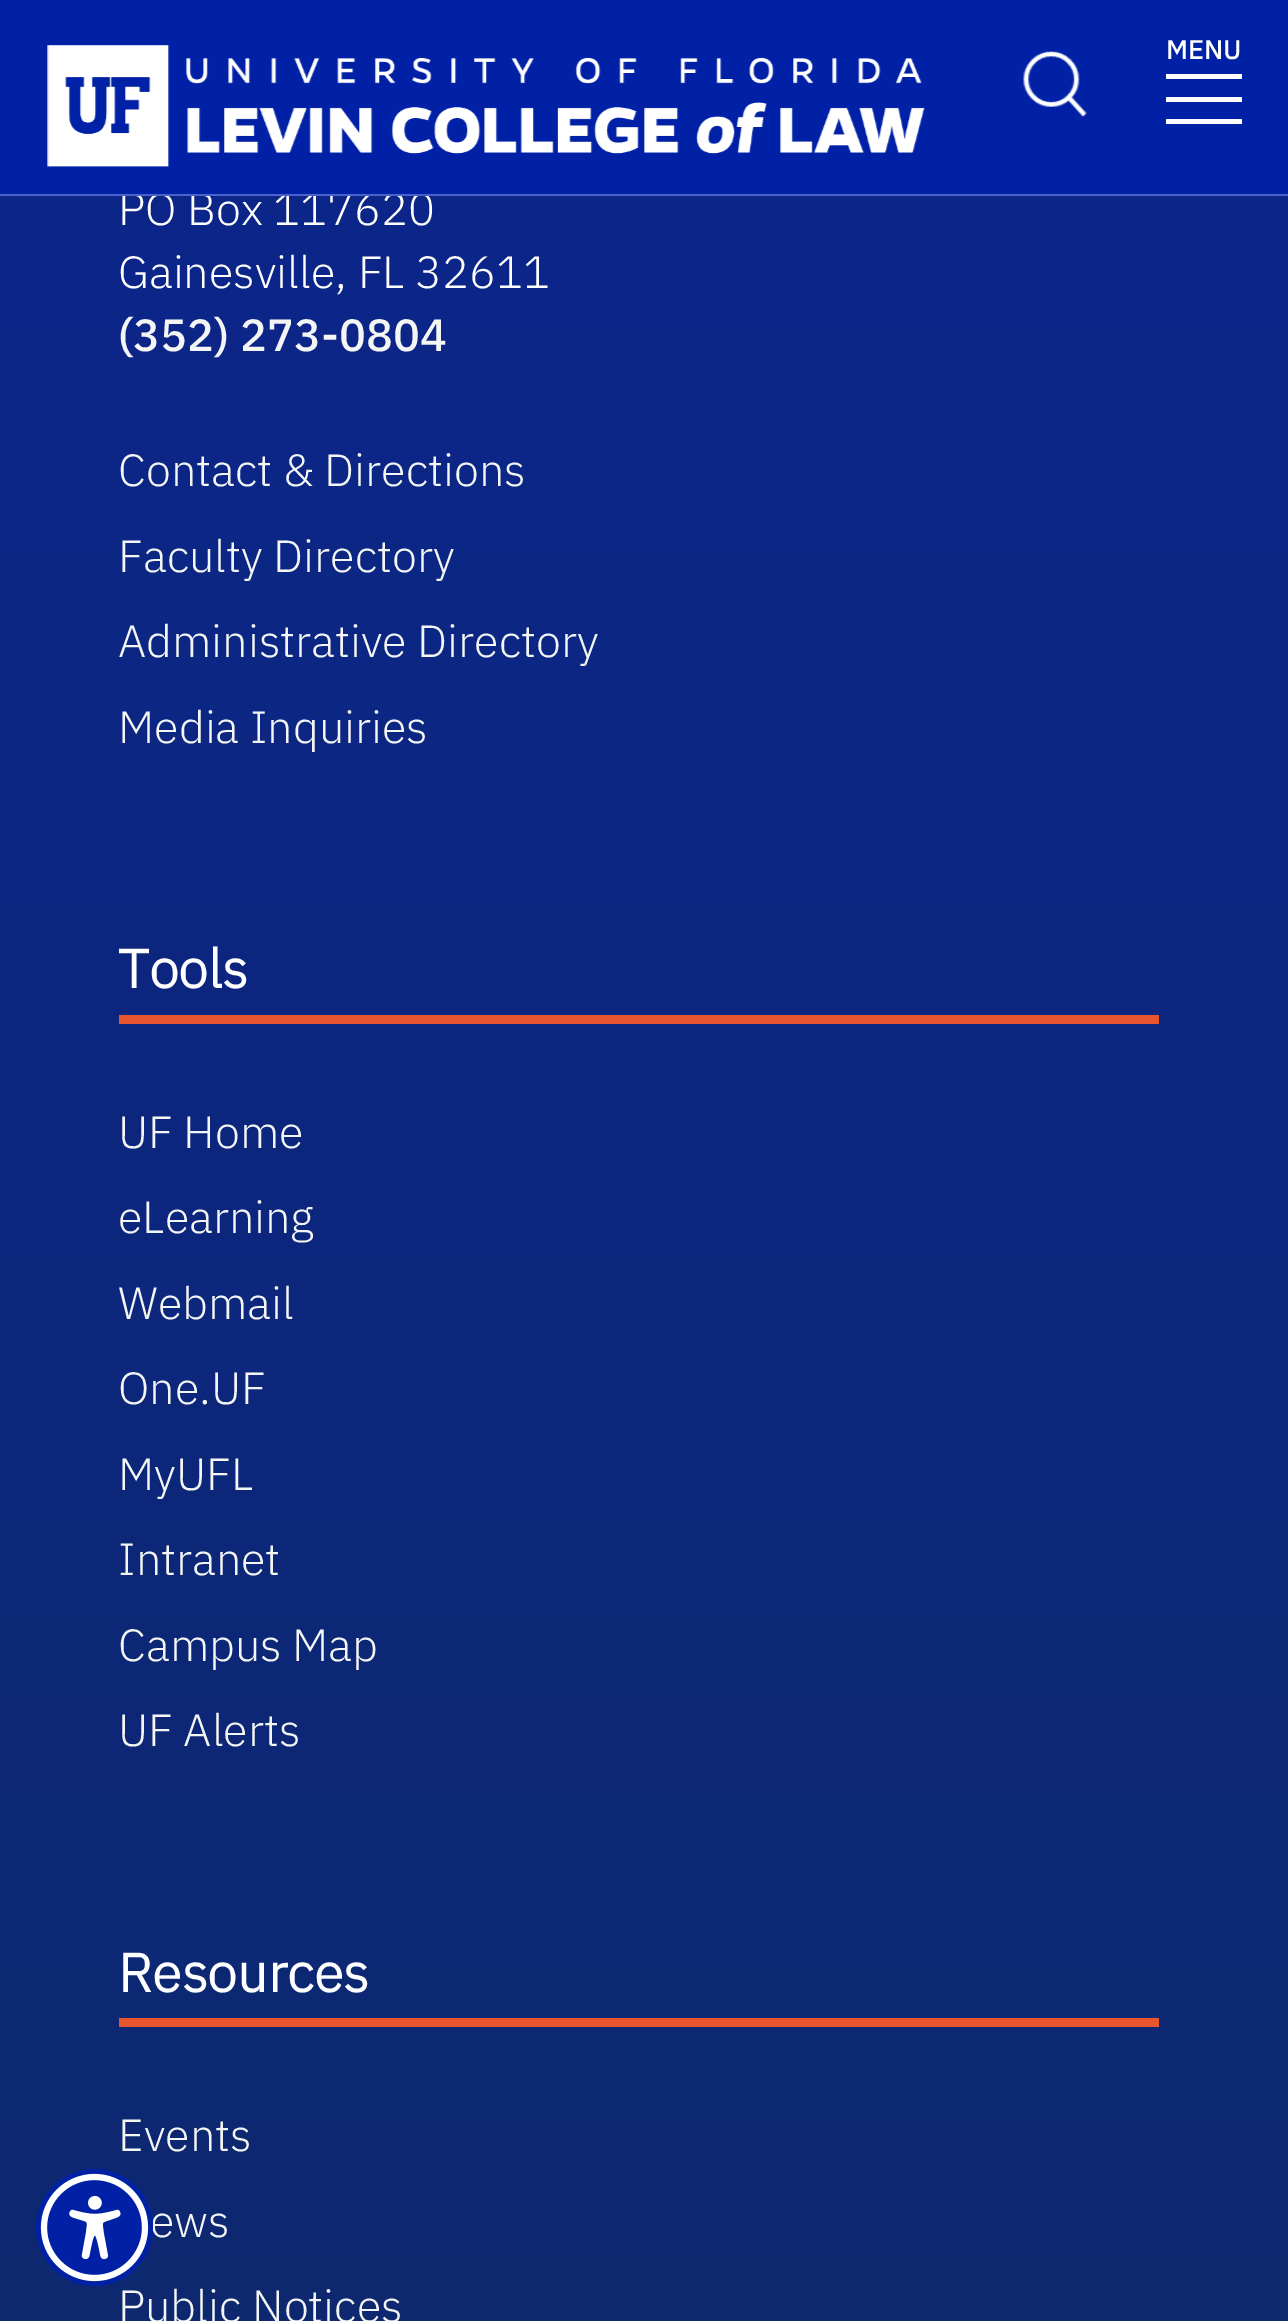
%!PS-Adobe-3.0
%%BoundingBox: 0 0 1288 2321
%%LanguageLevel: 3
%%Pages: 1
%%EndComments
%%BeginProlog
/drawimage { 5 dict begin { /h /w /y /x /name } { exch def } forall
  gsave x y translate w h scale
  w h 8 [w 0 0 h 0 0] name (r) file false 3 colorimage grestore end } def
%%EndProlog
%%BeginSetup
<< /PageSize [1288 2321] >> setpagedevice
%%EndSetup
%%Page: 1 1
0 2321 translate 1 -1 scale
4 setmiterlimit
1 setgray
0 0 1288 2321 rectfill
gsave newpath 0 196 moveto 1288 196 lineto 1288 2321 lineto 0 2321 lineto closepath clip newpath
<< /ShadingType 2 /ColorSpace /DeviceRGB /Coords [645 -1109 645 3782] /Extend [true true] /Function << /FunctionType 2 /Domain [0 1] /C0 [0.043 0.137 0.604] /C1 [0.055 0.169 0.365] /N 1 >> >> shfill grestore
0.91 0.333 0.184 setrgbcolor
119 1015 1040 9 rectfill
119 2018 1040 9 rectfill
/IBMPlexSans-Light [45 0 0 -45 0 0] selectfont
1 setgray
118 225 moveto (PO Box 117620) show
0 0.129 0.647 setrgbcolor
0 0 1288 194 rectfill
1 setgray
1166 74 76 5 rectfill
1166 119 76 5 rectfill
1166 97 76 5 rectfill
/IBMPlexSans-Medium [27 0 0 -27 0 0] selectfont
1166 59 moveto (MENU) show
(images/2.raw) 1023 51 64 66 drawimage
(images/1.raw) 47 45 878 122 drawimage
0.29 0.388 0.796 setrgbcolor
0 194 1288 2 rectfill
/IBMPlexSans-Light [45 0 0 -45 0 0] selectfont
1 setgray
118 288 moveto (Gainesville, FL 32611) show
/IBMPlexSans-Medium [45 0 0 -45 0 0] selectfont
0.957 0.965 0.965 setrgbcolor
118 351 moveto (\(352\) 273-0804) show
/IBMPlexSans-Light [45 0 0 -45 0 0] selectfont
118 486 moveto (Contact & Directions) show
118 572 moveto (Faculty Directory) show
118 657 moveto (Administrative Directory) show
118 743 moveto (Media Inquiries) show
/IBMPlexSans-Bold [54 0 0 -54 0 0] selectfont
1 setgray
118 988 moveto (Tools) show
/IBMPlexSans-Light [45 0 0 -45 0 0] selectfont
0.957 0.965 0.965 setrgbcolor
118 1148 moveto (UF Home) show
118 1233 moveto (eLearning) show
118 1319 moveto (Webmail) show
118 1404 moveto (One.UF) show
118 1490 moveto (MyUFL) show
118 1575 moveto (Intranet) show
118 1661 moveto (Campus Map) show
118 1746 moveto (UF Alerts) show
/IBMPlexSans-Bold [54 0 0 -54 0 0] selectfont
1 setgray
118 1992 moveto (Resources) show
/IBMPlexSans-Light [45 0 0 -45 0 0] selectfont
0.957 0.965 0.965 setrgbcolor
118 2151 moveto (Events) show
150 2237 moveto (ews) show
0 0.129 0.647 setrgbcolor
newpath 94.5 2227.5 58.5 0 360 arc closepath fill
(images/3.raw) 40 2173 109 109 drawimage
0.957 0.965 0.965 setrgbcolor
118 2322 moveto (Public Notices) show
showpage
%%EOF
